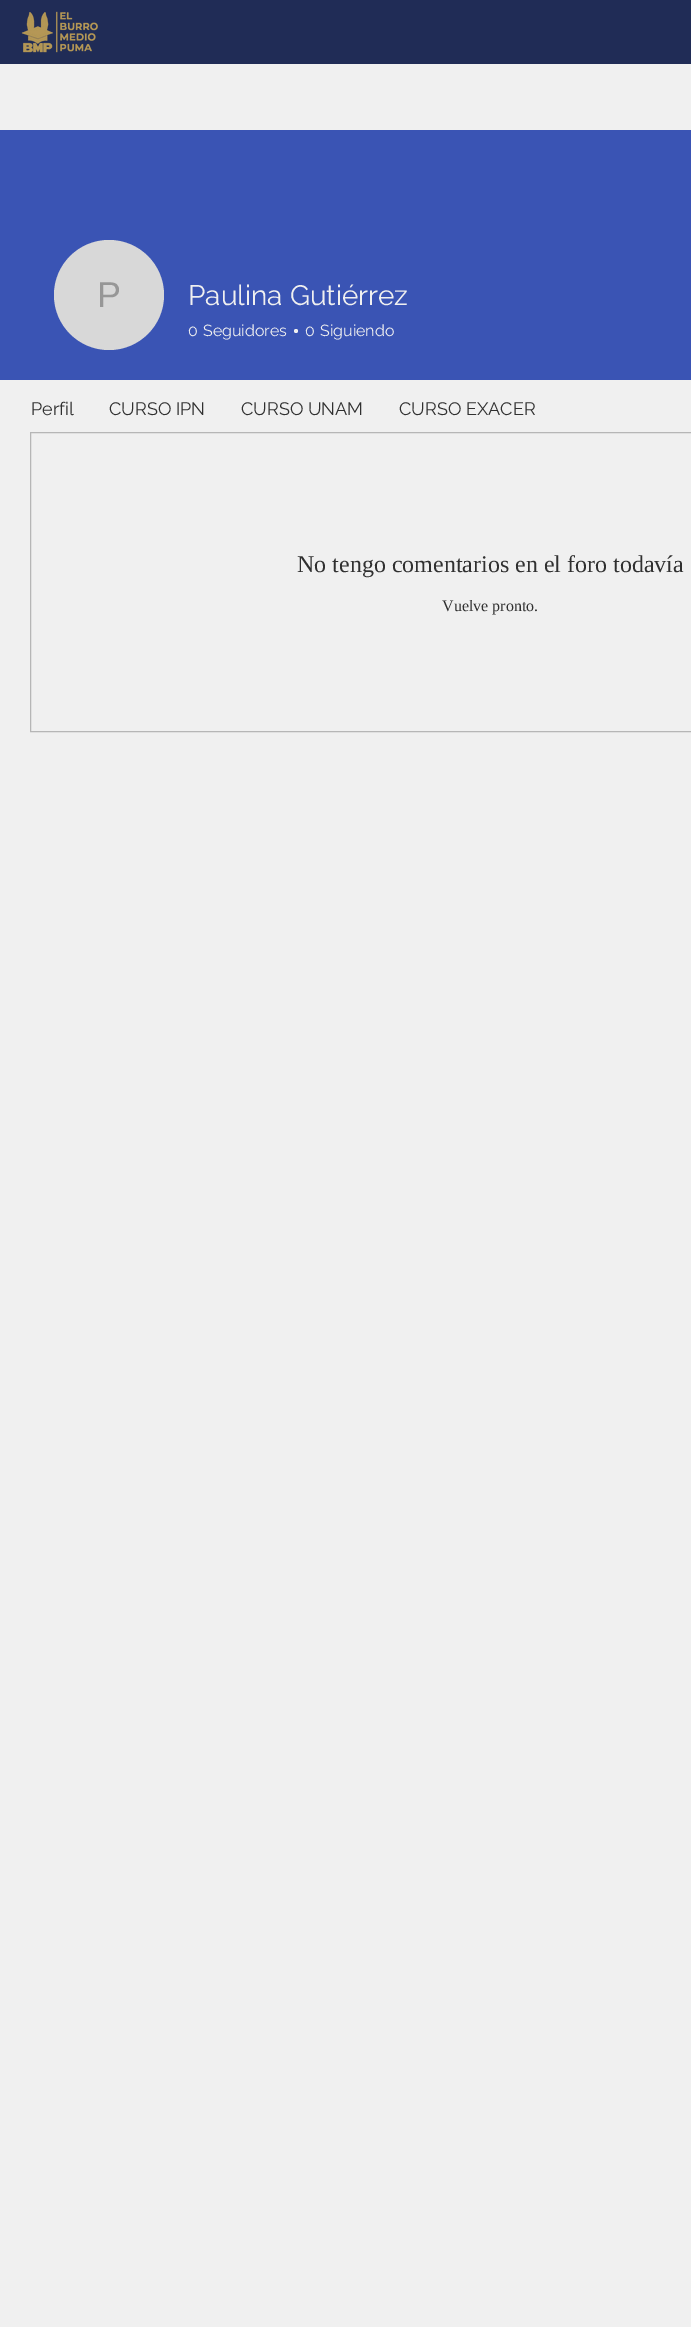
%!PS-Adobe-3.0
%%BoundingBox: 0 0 691 2327
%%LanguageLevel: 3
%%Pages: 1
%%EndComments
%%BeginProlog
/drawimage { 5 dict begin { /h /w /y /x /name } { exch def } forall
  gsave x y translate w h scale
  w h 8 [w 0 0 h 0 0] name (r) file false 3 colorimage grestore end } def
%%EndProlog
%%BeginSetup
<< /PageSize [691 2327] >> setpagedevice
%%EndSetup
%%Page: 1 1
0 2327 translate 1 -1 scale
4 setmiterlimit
0.941 setgray
0 0 691 2327 rectfill
0.125 0.173 0.337 setrgbcolor
0 0 691 64 rectfill
(images/1.raw) 21 11 77 42 drawimage
0.227 0.329 0.706 setrgbcolor
0 130 691 250 rectfill
0.847 setgray
newpath 109 295 55 0 360 arc closepath fill
0.941 setgray
newpath 296 331 2 0 360 arc closepath fill
0.714 setgray
30.5 432.5 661 299 rectstroke
/LiberationSans-Regular [36 0 0 -36 0 0] selectfont
0.592 setgray
97 307 moveto (P) show
/Raleway-Regular [28 0 0 -28 0 0] selectfont
0.941 setgray
188 305 moveto (Paulina Gutiérrez) show
/Raleway-Regular [16 0 0 -16 0 0] selectfont
188 336 moveto (0) show
203 336 moveto (Seguidores) show
305 336 moveto (0) show
320 336 moveto (Siguiendo) show
/Raleway-Regular [18 0 0 -18 0 0] selectfont
0.188 setgray
31 415 moveto (Perfil) show
109 415 moveto (CURSO IPN) show
241 415 moveto (CURSO UNAM) show
399 415 moveto (CURSO EXACER) show
/LiberationSerif-Regular [24 0 0 -24 0 0] selectfont
297 572 moveto (No tengo comentarios en el foro todavía) show
/LiberationSerif-Regular [16 0 0 -16 0 0] selectfont
442 611 moveto (Vuelve pronto.) show
showpage
%%EOF
